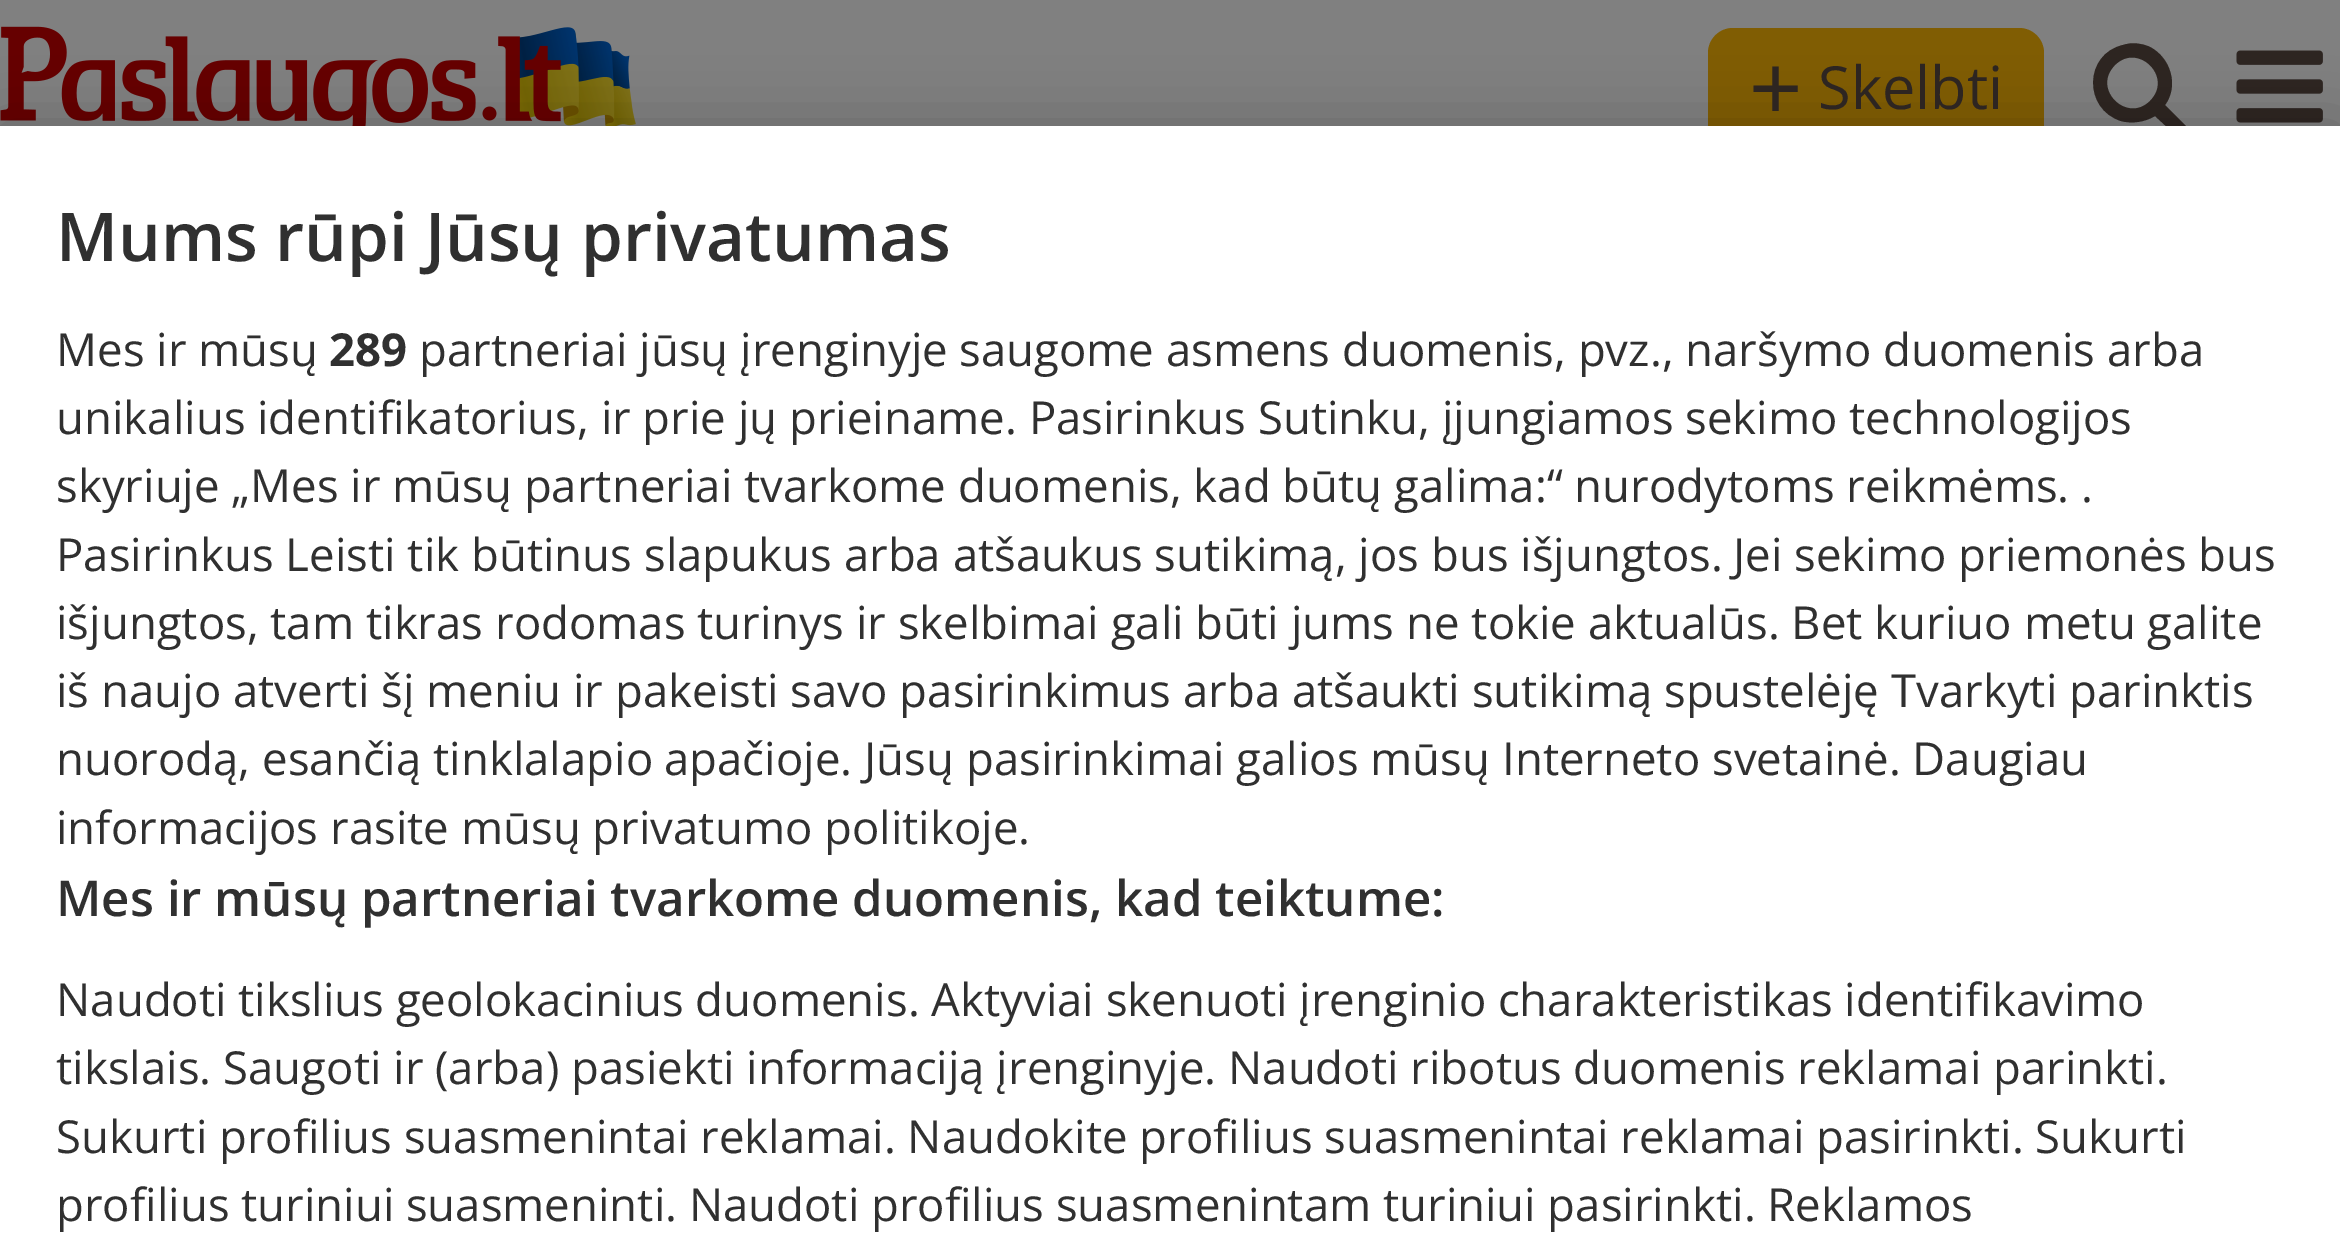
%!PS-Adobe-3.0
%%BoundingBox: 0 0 2340 1240
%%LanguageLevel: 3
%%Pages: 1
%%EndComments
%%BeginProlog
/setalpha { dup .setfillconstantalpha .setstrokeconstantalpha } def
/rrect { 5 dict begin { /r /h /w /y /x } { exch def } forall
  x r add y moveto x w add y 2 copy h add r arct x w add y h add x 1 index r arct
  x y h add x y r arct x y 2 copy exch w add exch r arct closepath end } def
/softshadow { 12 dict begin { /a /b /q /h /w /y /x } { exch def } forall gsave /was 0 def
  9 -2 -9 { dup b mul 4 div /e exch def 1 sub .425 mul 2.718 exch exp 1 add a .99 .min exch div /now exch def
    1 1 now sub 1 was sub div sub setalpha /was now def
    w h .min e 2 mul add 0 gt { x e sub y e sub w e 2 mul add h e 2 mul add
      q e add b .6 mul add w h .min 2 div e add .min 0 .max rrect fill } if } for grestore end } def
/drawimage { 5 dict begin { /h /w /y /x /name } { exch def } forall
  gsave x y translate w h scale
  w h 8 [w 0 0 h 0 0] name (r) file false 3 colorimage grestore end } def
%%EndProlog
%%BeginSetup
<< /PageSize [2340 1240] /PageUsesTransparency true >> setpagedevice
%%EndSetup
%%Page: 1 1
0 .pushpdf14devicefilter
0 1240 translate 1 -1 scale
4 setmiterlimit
0.502 setgray
0 0 2340 1240 rectfill
(images/1.raw) 0 26 636 100 drawimage
0.502 0.365 0.012 setrgbcolor
1708 28 336 123 25 rrect fill
0.176 0.145 0.129 setrgbcolor
newpath 2150 101 moveto 2174 77 2138 42 2115 65 curveto 2091 89 2127 124 2150 101 curveto closepath 2187 130 moveto 2187 132 2185 134 2183 136 curveto 2177 140 2172 132 2168 128 curveto 2155 116 lineto 2145 122 2132 124 2121 121 curveto 2083 109 2084 54 2123 45 curveto 2132 42 2141 43 2150 47 curveto 2171 58 2179 86 2165 105 curveto 2185 125 lineto 2186 126 2187 128 2187 130 curveto closepath fill
(images/2.raw) 2236 50 87 73 drawimage
0 setgray
0 126 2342 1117 0 31.5 0.2 softshadow
1 setgray
0 126 2340 1114 rectfill
/LiberationSans-Regular [91 0 0 -91 0 0] selectfont
0.176 0.145 0.129 setrgbcolor
1749 119 moveto (+) show
/OpenSans-Regular [59.5 0 0 -59.5 0 0] selectfont
1818 109 moveto (Skelbti) show
/OpenSans-SemiBold [67.25 0 0 -67.25 0 0] selectfont
0.188 setgray
56 261 moveto (Mums rūpi Jūsų privatumas) show
/OpenSans-Regular [45.55 0 0 -45.55 0 0] selectfont
56 366 moveto (Mes ir mūsų) show
/OpenSans-Bold [45.55 0 0 -45.55 0 0] selectfont
329 366 moveto (289) show
/OpenSans-Regular [45.55 0 0 -45.55 0 0] selectfont
419 366 moveto (partneriai jūsų įrenginyje) show
959 366 moveto (saugome asmens duomenis, pvz., naršymo duomenis arba) show
56 434 moveto -0.1 0 32 (unikalius identifikatorius, ir prie jų prieiname. Pasirinkus Sutinku, įjungiamos sekimo technologijos) widthshow
56 502 moveto (skyriuje „Mes ir mūsų partneriai tvarkome duomenis, kad būtų galima:“ nurodytoms reikmėms. .) show
56 571 moveto (Pasirinkus Leisti tik būtinus slapukus arba atšaukus sutikimą, jos bus išjungtos.) show
1733 571 moveto (Jei sekimo priemonės bus) show
56 639 moveto (išjungtos, tam tikras rodomas turinys ir skelbimai gali būti jums ne tokie aktualūs. Bet kuriuo metu galite) show
56 707 moveto (iš naujo atverti šį meniu ir pakeisti savo pasirinkimus arba atšaukti sutikimą spustelėję Tvarkyti parinktis) show
56 775 moveto (nuorodą, esančią tinklalapio) show
664 775 moveto (apačioje. Jūsų pasirinkimai galios mūsų Interneto svetainė. Daugiau) show
56 844 moveto (informacijos rasite mūsų privatumo politikoje.) show
/OpenSans-SemiBold [49.25 0 0 -49.25 0 0] selectfont
56 916 moveto (Mes ir mūsų partneriai tvarkome duomenis, kad teiktume:) show
/OpenSans-Regular [45.55 0 0 -45.55 0 0] selectfont
56 1016 moveto -0.25 0 32 (Naudoti tikslius geolokacinius duomenis. Aktyviai skenuoti įrenginio charakteristikas identifikavimo) widthshow
56 1084 moveto (tikslais. Saugoti ir \(arba\) pasiekti informaciją įrenginyje. Naudoti ribotus duomenis reklamai parinkti.) show
56 1153 moveto -0.25 0 32 (Sukurti profilius suasmenintai reklamai. Naudokite profilius suasmenintai reklamai pasirinkti. Sukurti) widthshow
56 1221 moveto -0.25 0 32 (profilius turiniui suasmeninti. Naudoti profilius suasmenintam turiniui pasirinkti. Reklamos) widthshow
.poppdf14devicefilter showpage
%%EOF
